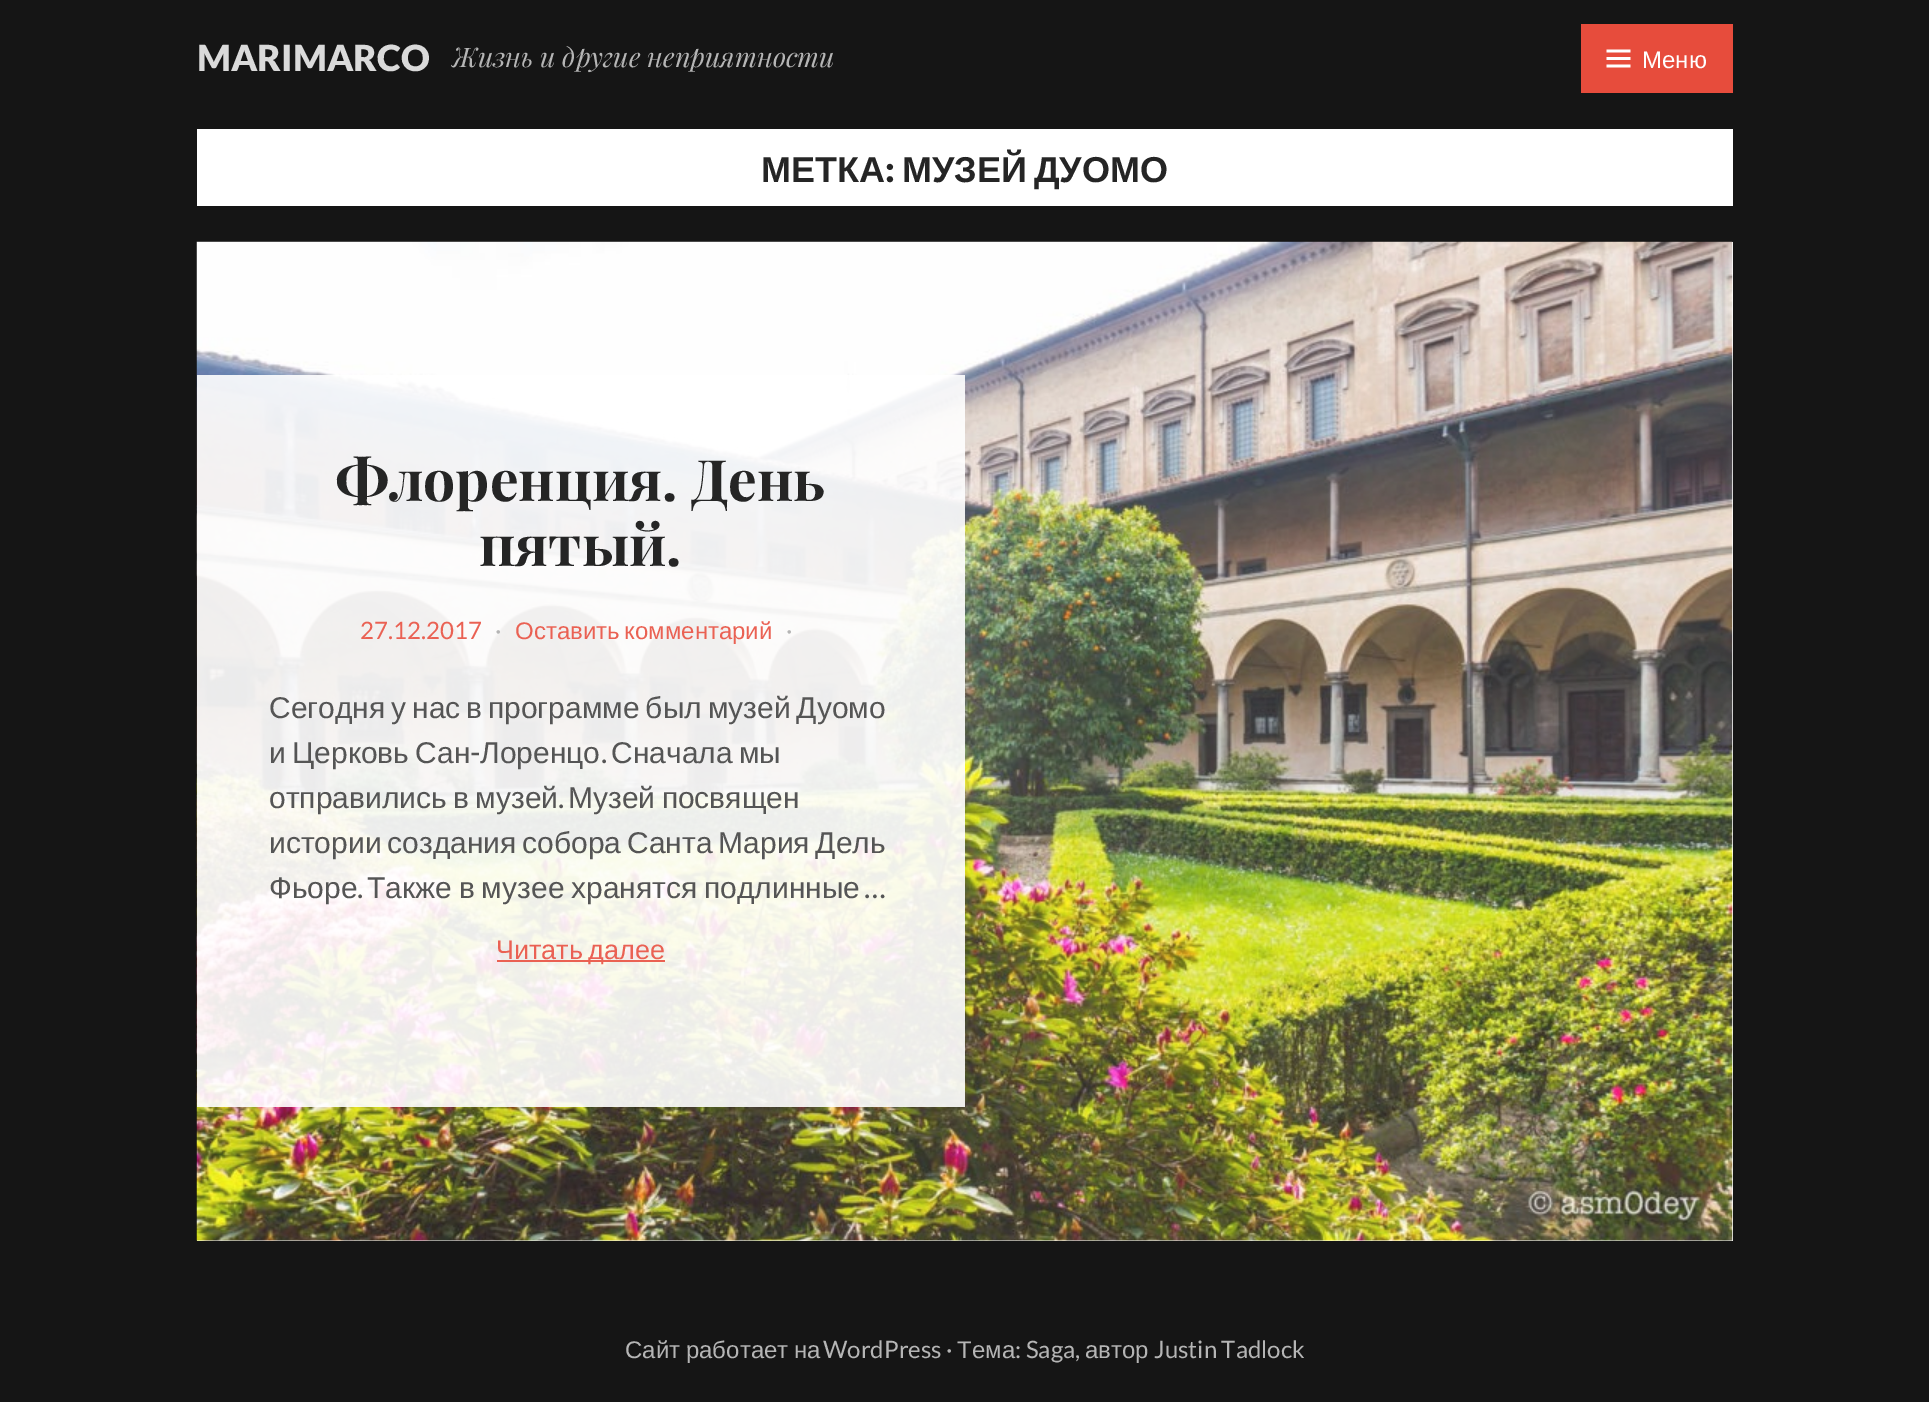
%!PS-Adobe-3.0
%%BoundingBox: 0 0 1929 1402
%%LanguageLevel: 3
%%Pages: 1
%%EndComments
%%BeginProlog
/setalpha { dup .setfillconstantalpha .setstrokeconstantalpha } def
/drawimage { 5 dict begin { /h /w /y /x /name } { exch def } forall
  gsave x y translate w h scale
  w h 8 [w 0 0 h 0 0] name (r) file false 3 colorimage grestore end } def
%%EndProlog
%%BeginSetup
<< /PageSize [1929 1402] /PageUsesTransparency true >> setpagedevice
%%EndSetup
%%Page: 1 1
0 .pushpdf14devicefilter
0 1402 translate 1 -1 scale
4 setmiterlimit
0.082 setgray
0 0 1929 1402 rectfill
0.906 0.298 0.235 setrgbcolor
1581 24 152 69 rectfill
(images/1.raw) 1606 49 25 19 drawimage
1 setgray
197 129 1536 77 rectfill
197 242 1536 999 rectfill
(images/2.raw) 196 241 1537 1000 drawimage
0.9 setalpha
197 375 768 732 rectfill
1 setalpha
0.918 0.38 0.325 setrgbcolor
497 960 168 2 rectfill
/Lato-Black [36 0 0 -36 0 0] selectfont
0.855 setgray
197 71 moveto (MARIMARCO) show
/PlayfairDisplay-Italic [27 0 0 -27 0 0] selectfont
0.71 setgray
452 67 moveto (Жизнь и другие неприятности) show
/LiberationSans-Regular [24 0 0 -24 0 0] selectfont
1 setgray
1642 68 moveto (Меню) show
/LiberationSans-Bold [36 0 0 -36 0 0] selectfont
0.145 setgray
761 182 moveto (МЕТКА) show
/Lato-Black [36 0 0 -36 0 0] selectfont
885 182 moveto (:) show
/LiberationSans-Bold [36 0 0 -36 0 0] selectfont
902 182 moveto -3 0 32 (МУЗЕЙ ДУОМО) widthshow
/PlayfairDisplay-Bold [57 0 0 -57 0 0] selectfont
336 501 moveto (Флоренция. День) show
479 566 moveto (пятый.) show
/Lato-Regular [24 0 0 -24 0 0] selectfont
0.918 0.38 0.325 setrgbcolor
360 639 moveto (27.12.2017) show
0.71 setgray
495 639 moveto (·) show
/LiberationSans-Regular [24 0 0 -24 0 0] selectfont
0.918 0.38 0.325 setrgbcolor
515 639 moveto -2 0 32 (Оставить комментарий) widthshow
/Lato-Regular [24 0 0 -24 0 0] selectfont
0.71 setgray
786 639 moveto (·) show
/LiberationSans-Regular [30 0 0 -30 0 0] selectfont
0.333 setgray
269 718 moveto -2.5 0 32 (Сегодня у нас в программе был музей Дуомо) widthshow
269 763 moveto -2 0 32 (и Церковь Сан) widthshow
/Lato-Regular [30 0 0 -30 0 0] selectfont
470 763 moveto (-) show
/LiberationSans-Regular [30 0 0 -30 0 0] selectfont
480 763 moveto (Лоренцо) show
611 763 moveto -2 0 32 (Сначала мы) widthshow
/Lato-Regular [30 0 0 -30 0 0] selectfont
601 763 moveto (.) show
/LiberationSans-Regular [30 0 0 -30 0 0] selectfont
269 808 moveto -2 0 32 (отправились в музей) widthshow
/Lato-Regular [30 0 0 -30 0 0] selectfont
558 808 moveto (.) show
/LiberationSans-Regular [30 0 0 -30 0 0] selectfont
568 808 moveto -2 0 32 (Музей посвящен) widthshow
269 853 moveto -2.5 0 32 (истории создания собора Санта Мария Дель) widthshow
269 898 moveto (Фьоре) show
/Lato-Regular [30 0 0 -30 0 0] selectfont
357 898 moveto (.) show
/LiberationSans-Regular [30 0 0 -30 0 0] selectfont
367 898 moveto -1.5 0 32 (Также в музее хранятся подлинные) widthshow
/Lato-Regular [30 0 0 -30 0 0] selectfont
864 898 moveto (…) show
/LiberationSans-Regular [27 0 0 -27 0 0] selectfont
0.918 0.38 0.325 setrgbcolor
496 959 moveto -2 0 32 (Читать далее) widthshow
/LiberationSans-Regular [24 0 0 -24 0 0] selectfont
0.71 setgray
625 1358 moveto -1 0 32 (Сайт работает на) widthshow
/Lato-Regular [24 0 0 -24 0 0] selectfont
823 1358 moveto (WordPress ·) show
/LiberationSans-Regular [24 0 0 -24 0 0] selectfont
957 1358 moveto (Тема) show
/Lato-Regular [24 0 0 -24 0 0] selectfont
1015 1358 moveto (: Saga,) show
/LiberationSans-Regular [24 0 0 -24 0 0] selectfont
1085 1358 moveto (автор) show
/Lato-Regular [24 0 0 -24 0 0] selectfont
1154 1358 moveto (Justin Tadlock) show
.poppdf14devicefilter showpage
%%EOF
